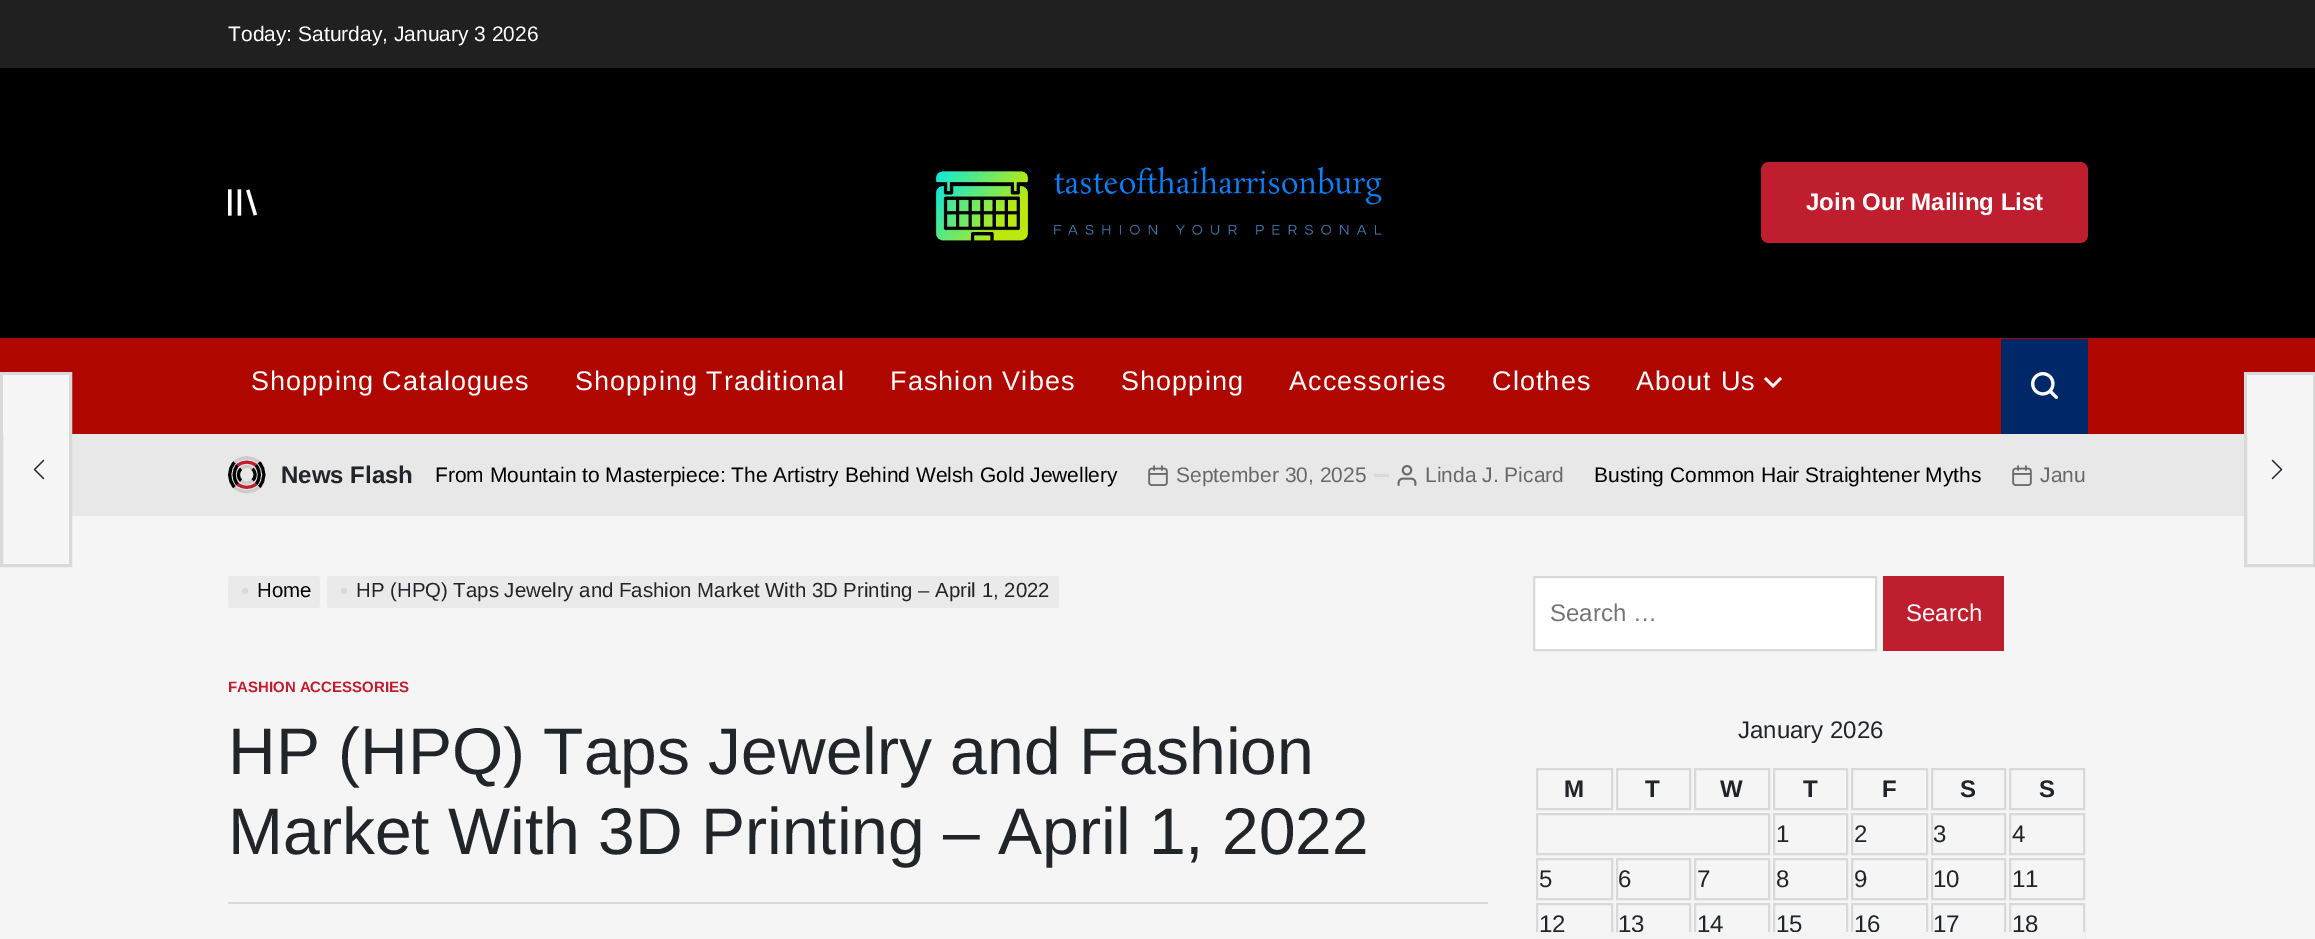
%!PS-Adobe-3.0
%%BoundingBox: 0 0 2315 939
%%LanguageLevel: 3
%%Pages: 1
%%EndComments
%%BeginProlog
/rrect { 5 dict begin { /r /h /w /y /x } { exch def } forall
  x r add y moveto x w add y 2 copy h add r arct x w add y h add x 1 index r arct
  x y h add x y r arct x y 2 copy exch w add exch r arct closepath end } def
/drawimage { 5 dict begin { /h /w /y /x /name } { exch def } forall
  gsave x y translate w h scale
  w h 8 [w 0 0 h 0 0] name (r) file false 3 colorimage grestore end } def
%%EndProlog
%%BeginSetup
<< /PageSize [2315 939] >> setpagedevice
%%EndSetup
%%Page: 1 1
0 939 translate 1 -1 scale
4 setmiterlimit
0.961 setgray
0 0 2315 939 rectfill
0.125 setgray
0 0 2315 68 rectfill
0 setgray
0 68 2315 270 rectfill
(images/1.raw) 228 189 30 27 drawimage
(images/2.raw) 935 166 447 75 drawimage
0.749 0.118 0.18 setrgbcolor
1761 162 327 81 8 rrect fill
0.686 0.027 0 setrgbcolor
0 338 2315 96 rectfill
1 setgray
newpath 1773 384 moveto 1780 377 lineto 1782 379 lineto 1773 388 lineto 1764 379 lineto 1766 377 lineto closepath fill
0 0.157 0.408 setrgbcolor
2001 339 87 95 rectfill
(images/3.raw) 2031 372 27 27 drawimage
0.91 setgray
72 434 2172 82 rectfill
0.8 setgray
3 setlinewidth
newpath 234.5 462.5 moveto 241 456 252.5 456 259 462.5 curveto stroke
0 setgray
newpath 259 462.5 moveto 265.5 469 265.5 480.5 259 487 curveto stroke
0.8 setgray
newpath 259 487 moveto 252.5 493.5 241 493.5 234.5 487 curveto stroke
0 setgray
newpath 234.5 487 moveto 228 480.5 228 469 234.5 462.5 curveto stroke
0.749 0.118 0.18 setrgbcolor
newpath 237.5 465.5 moveto 242.5 461 251 461 256 465.5 curveto stroke
0 setgray
newpath 256 465.5 moveto 260.5 470.5 260.5 479 256 484 curveto stroke
0.749 0.118 0.18 setrgbcolor
newpath 256 484 moveto 251 488.5 242.5 488.5 237.5 484 curveto stroke
0 setgray
newpath 237.5 484 moveto 233 479 233 470.5 237.5 465.5 curveto stroke
0.8 setgray
newpath 241 469 moveto 244 465.5 249.5 465.5 252.5 469 curveto stroke
0 setgray
newpath 252.5 469 moveto 256 472 256 477.5 252.5 480.5 curveto stroke
0.8 setgray
newpath 252.5 480.5 moveto 249.5 484 244 484 241 480.5 curveto stroke
0 setgray
newpath 241 480.5 moveto 237.5 477.5 237.5 472 241 469 curveto stroke
(images/4.raw) 1148 465 20 21 drawimage
0.851 setgray
1374 474 15 3 rectfill
(images/5.raw) 1397 465 20 21 drawimage
(images/4.raw) 2012 465 20 21 drawimage
1.5 373.5 69 192 rectstroke
0.961 setgray
3 375 66 59 rectfill
(images/6.raw) 33 459 12 21 drawimage
0.851 setgray
2245.5 373.5 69 192 rectstroke
0.961 setgray
2247 375 66 59 rectfill
(images/7.raw) 2271 459 12 21 drawimage
0.918 setgray
228 576 92 32 3 rrect fill
0.851 setgray
newpath 245 591 3 0 360 arc closepath fill
0.918 setgray
327 576 732 32 3 rrect fill
0.851 setgray
newpath 344 591 3 0 360 arc closepath fill
228 902 1260 2 rectfill
1 setgray
newpath 1534 577 moveto 1876 577 lineto 1876 650 lineto 1534 650 lineto closepath gsave fill grestore
0.851 setgray
2 setlinewidth
stroke
0.749 0.118 0.18 setrgbcolor
1883 576 121 75 rectfill
0.851 setgray
1537 769 75 40 rectstroke
1617 769 73 40 rectstroke
1695 769 74 40 rectstroke
1774 769 73 40 rectstroke
1852 769 75 40 rectstroke
1932 769 73 40 rectstroke
2010 769 74 40 rectstroke
1537 814 232 40 rectstroke
1774 814 73 40 rectstroke
1852 814 75 40 rectstroke
1932 814 73 40 rectstroke
2010 814 74 40 rectstroke
1537 859 75 40 rectstroke
1617 859 73 40 rectstroke
1695 859 74 40 rectstroke
1774 859 73 40 rectstroke
1852 859 75 40 rectstroke
1932 859 73 40 rectstroke
2010 859 74 40 rectstroke
1537 904 75 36 rectstroke
1617 904 73 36 rectstroke
1695 904 74 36 rectstroke
1774 904 73 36 rectstroke
1852 904 75 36 rectstroke
1932 904 73 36 rectstroke
2010 904 74 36 rectstroke
/LiberationSans-Regular [21 0 0 -21 0 0] selectfont
1 setgray
228 41 moveto (Today: Saturday, January 3 2026) show
/LiberationSans-Bold [24 0 0 -24 0 0] selectfont
1806 210 moveto (Join Our Mailing List) show
/LiberationSans-Regular [27 0 0 -27 0 0] selectfont
251 390 moveto 1.1 0 (Shopping Catalogues) ashow
575 390 moveto 1.1 0 (Shopping Traditional) ashow
890 390 moveto 1.1 0 (Fashion Vibes) ashow
1121 390 moveto 1.1 0 (Shopping) ashow
1289 390 moveto 1.1 0 (Accessories) ashow
1492 390 moveto 1.1 0 (Clothes) ashow
1636 390 moveto 1.1 0 (About Us) ashow
/LiberationSans-Bold [24 0 0 -24 0 0] selectfont
0.129 0.145 0.161 setrgbcolor
281 483 moveto (News Flash) show
/LiberationSans-Regular [21 0 0 -21 0 0] selectfont
0 setgray
435 482 moveto (From Mountain to Masterpiece: The Artistry Behind Welsh Gold Jewellery) show
0.408 setgray
1176 482 moveto (September 30, 2025) show
1425 482 moveto (Linda J. Picard) show
0 setgray
1594 482 moveto (Busting Common Hair Straightener Myths) show
0.408 setgray
2040 482 moveto (Janu) show
/LiberationSans-Regular [20.4 0 0 -20.4 0 0] selectfont
0 setgray
257 597 moveto (Home) show
0.129 0.145 0.161 setrgbcolor
356 597 moveto (HP \(HPQ\) Taps Jewelry and Fashion Market With 3D Printing – April 1, 2022) show
/LiberationSans-Bold [15 0 0 -15 0 0] selectfont
0.749 0.118 0.18 setrgbcolor
228 692 moveto (FASHION ACCESSORIES) show
/LiberationSans-Regular [66 0 0 -66 0 0] selectfont
0.129 0.145 0.161 setrgbcolor
228 774 moveto (HP \(HPQ\) Taps Jewelry and Fashion) show
228 854 moveto (Market With 3D Printing – April 1, 2022) show
/LiberationSans-Regular [24 0 0 -24 0 0] selectfont
0.459 setgray
1550 621 moveto (Search …) show
1 setgray
1906 621 moveto (Search) show
0.129 0.145 0.161 setrgbcolor
1738 738 moveto (January 2026) show
/LiberationSans-Bold [24 0 0 -24 0 0] selectfont
1564 797 moveto (M) show
1645 797 moveto (T) show
1720 797 moveto (W) show
1803 797 moveto (T) show
1882 797 moveto (F) show
1960 797 moveto (S) show
2039 797 moveto (S) show
/LiberationSans-Regular [24 0 0 -24 0 0] selectfont
1776 842 moveto (1) show
1854 842 moveto (2) show
1933 842 moveto (3) show
2012 842 moveto (4) show
1539 887 moveto (5) show
1618 887 moveto (6) show
1697 887 moveto (7) show
1776 887 moveto (8) show
1854 887 moveto (9) show
1933 887 moveto (10) show
2012 887 moveto (11) show
1539 932 moveto (12) show
1618 932 moveto (13) show
1697 932 moveto (14) show
1776 932 moveto (15) show
1854 932 moveto (16) show
1933 932 moveto (17) show
2012 932 moveto (18) show
0.953 setgray
1536 932 549 7 rectfill
showpage
%%EOF
